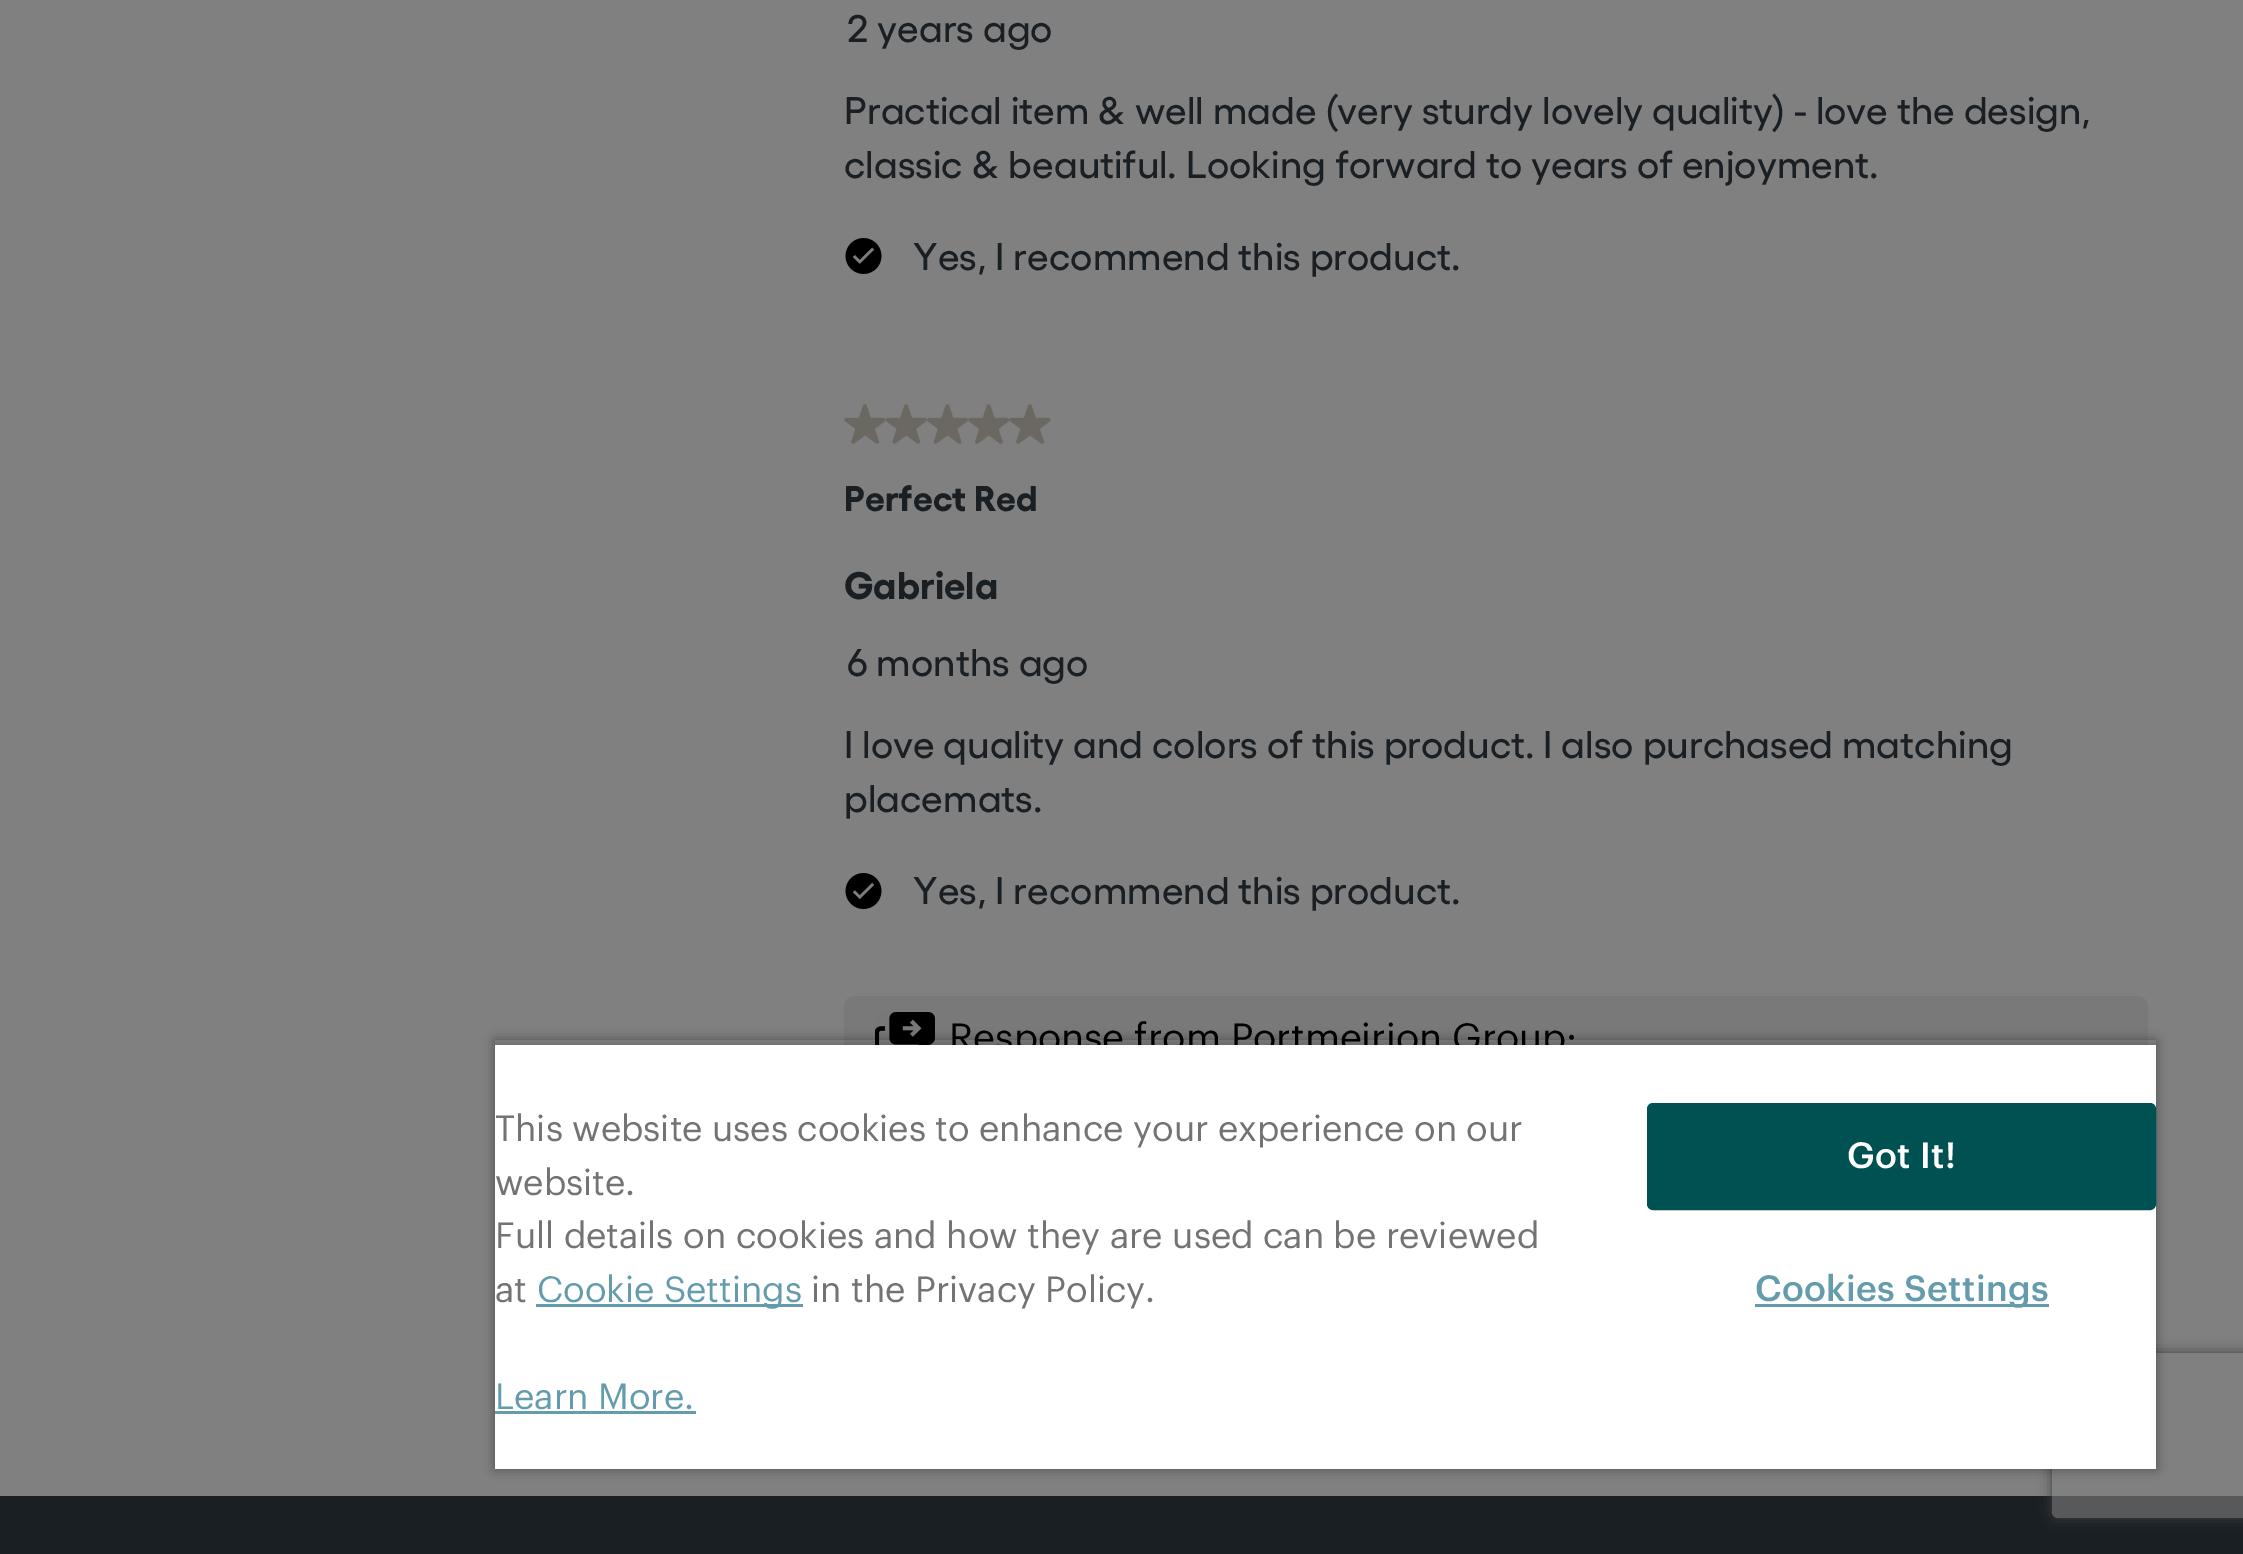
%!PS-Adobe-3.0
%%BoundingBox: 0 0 2243 1554
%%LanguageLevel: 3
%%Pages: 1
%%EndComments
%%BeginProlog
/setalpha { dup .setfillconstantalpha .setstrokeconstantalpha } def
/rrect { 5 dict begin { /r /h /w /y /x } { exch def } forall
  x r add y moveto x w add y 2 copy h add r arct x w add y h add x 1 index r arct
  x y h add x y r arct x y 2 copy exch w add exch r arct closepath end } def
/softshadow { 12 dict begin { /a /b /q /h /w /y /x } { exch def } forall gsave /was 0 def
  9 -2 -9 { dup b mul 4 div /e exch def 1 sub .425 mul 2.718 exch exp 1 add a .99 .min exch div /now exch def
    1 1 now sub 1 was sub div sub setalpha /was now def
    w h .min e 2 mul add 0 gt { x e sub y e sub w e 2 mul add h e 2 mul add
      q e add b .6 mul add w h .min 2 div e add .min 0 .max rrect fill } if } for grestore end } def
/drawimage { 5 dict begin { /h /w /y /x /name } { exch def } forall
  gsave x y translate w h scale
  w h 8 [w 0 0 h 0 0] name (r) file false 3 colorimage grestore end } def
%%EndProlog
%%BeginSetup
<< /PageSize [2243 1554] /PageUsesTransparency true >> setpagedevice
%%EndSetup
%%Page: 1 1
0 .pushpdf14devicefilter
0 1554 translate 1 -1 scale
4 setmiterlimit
0.502 setgray
0 0 2243 1554 rectfill
(images/1.raw) 845 238 37 36 drawimage
(images/2.raw) 844 404 42 40 drawimage
(images/3.raw) 886 404 41 40 drawimage
(images/4.raw) 927 404 41 40 drawimage
(images/5.raw) 968 404 41 40 drawimage
(images/2.raw) 1009 404 42 40 drawimage
(images/6.raw) 845 873 37 36 drawimage
0.475 setgray
newpath 855 998 moveto 2137 998 lineto 2141.5 998 2145 1001.5 2145 1006 curveto 2145 1144 lineto 847 1144 lineto 847 1006 lineto 847 1001.5 850.5 998 855 998 curveto closepath fill
newpath 855 996 moveto 2137 996 lineto 2143 996 2148 1000 2148 1006 curveto 2148 1144 lineto 844 1144 lineto 844 1006 lineto 844 1000 849 996 855 996 curveto closepath 855 998 moveto 2137 998 lineto 2141 998 2145 1002 2145 1006 curveto 2145 1144 lineto 847 1144 lineto 847 1006 lineto 847 1002 851 998 855 998 curveto closepath eofill
(images/7.raw) 875 1012 60 33 drawimage
0.102 0.122 0.141 setrgbcolor
0 1496 2243 58 rectfill
gsave
newpath 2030 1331 moveto 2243 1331 lineto 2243 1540 lineto 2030 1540 lineto closepath 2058 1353 moveto 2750 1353 lineto 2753.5 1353 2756 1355.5 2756 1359 curveto 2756 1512 lineto 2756 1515.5 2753.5 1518 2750 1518 curveto 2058 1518 lineto 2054.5 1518 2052 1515.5 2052 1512 curveto 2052 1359 lineto 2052 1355.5 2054.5 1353 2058 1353 curveto closepath eoclip newpath
0.251 setgray
2052 1353 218 165 6 7 1 softshadow
grestore
0.6 setalpha
0.502 setgray
2052 1353 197 165 6 rrect fill
gsave
newpath 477 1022 moveto 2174 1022 lineto 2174 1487 lineto 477 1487 lineto closepath 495 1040 moveto 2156 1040 lineto 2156 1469 lineto 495 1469 lineto closepath eoclip newpath
1 setalpha
0 setgray
495 1040 1661 429 0 5.5 0.35 softshadow
grestore
gsave
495 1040 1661 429 rectclip
1 setalpha
0 setgray
495 1045 1661 424 0 5.5 0.2 softshadow
grestore
/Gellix-Medium [38.5 0 0 -38.5 0 0] selectfont
1 setalpha
0.102 0.122 0.141 setrgbcolor
847 42 moveto (2 years ago) show
844 124 moveto (Practical item & well made \(very sturdy lovely quality\) - love the design,) show
844 178 moveto (classic & beautiful. Looking forward to years of enjoyment.) show
913 270 moveto (Yes, I recommend this product.) show
/Gellix-Bold [35.75 0 0 -35.75 0 0] selectfont
844 511 moveto (Perfect Red) show
/Gellix-Bold [38.5 0 0 -38.5 0 0] selectfont
844 599 moveto (Gabriela) show
/Gellix-Medium [38.5 0 0 -38.5 0 0] selectfont
847 676 moveto (6 months ago) show
844 758 moveto (I love quality and colors of this product. I also purchased matching) show
844 812 moveto (placemats.) show
913 904 moveto (Yes, I recommend this product.) show
/Graphik-Regular [38.5 0 0 -38.5 0 0] selectfont
0 setgray
949 1051 moveto (Response from Portmeirion Group:) show
1 setgray
495 1045 1661 424 rectfill
/Graphik-Regular [35.75 0 0 -35.75 0 0] selectfont
0.451 setgray
495 1141 moveto (This website uses cookies to enhance your experience on our) show
495 1195 moveto (website.) show
495 1248 moveto (Full details on cookies and how they are used can be reviewed) show
495 1302 moveto (at) show
0.392 0.612 0.678 setrgbcolor
536 1304 267 3 rectfill
537 1302 moveto (Cookie Settings) show
0.451 setgray
811 1302 moveto (in the Privacy Policy.) show
0.392 0.612 0.678 setrgbcolor
495 1409 moveto (Learn More.) show
495 1411 201 3 rectfill
0 0.318 0.318 setrgbcolor
1648.5 1104.5 506 104 4.5 rrect gsave fill grestore
3 setlinewidth
stroke
/Graphik-Medium [35.75 0 0 -35.75 0 0] selectfont
1 setgray
1847 1168 moveto 0.4 0 (Got It!) ashow
0.392 0.612 0.678 setrgbcolor
1755 1304 294 3 rectfill
1755 1301 moveto 0.4 0 (Cookies Settings) ashow
.poppdf14devicefilter showpage
%%EOF
